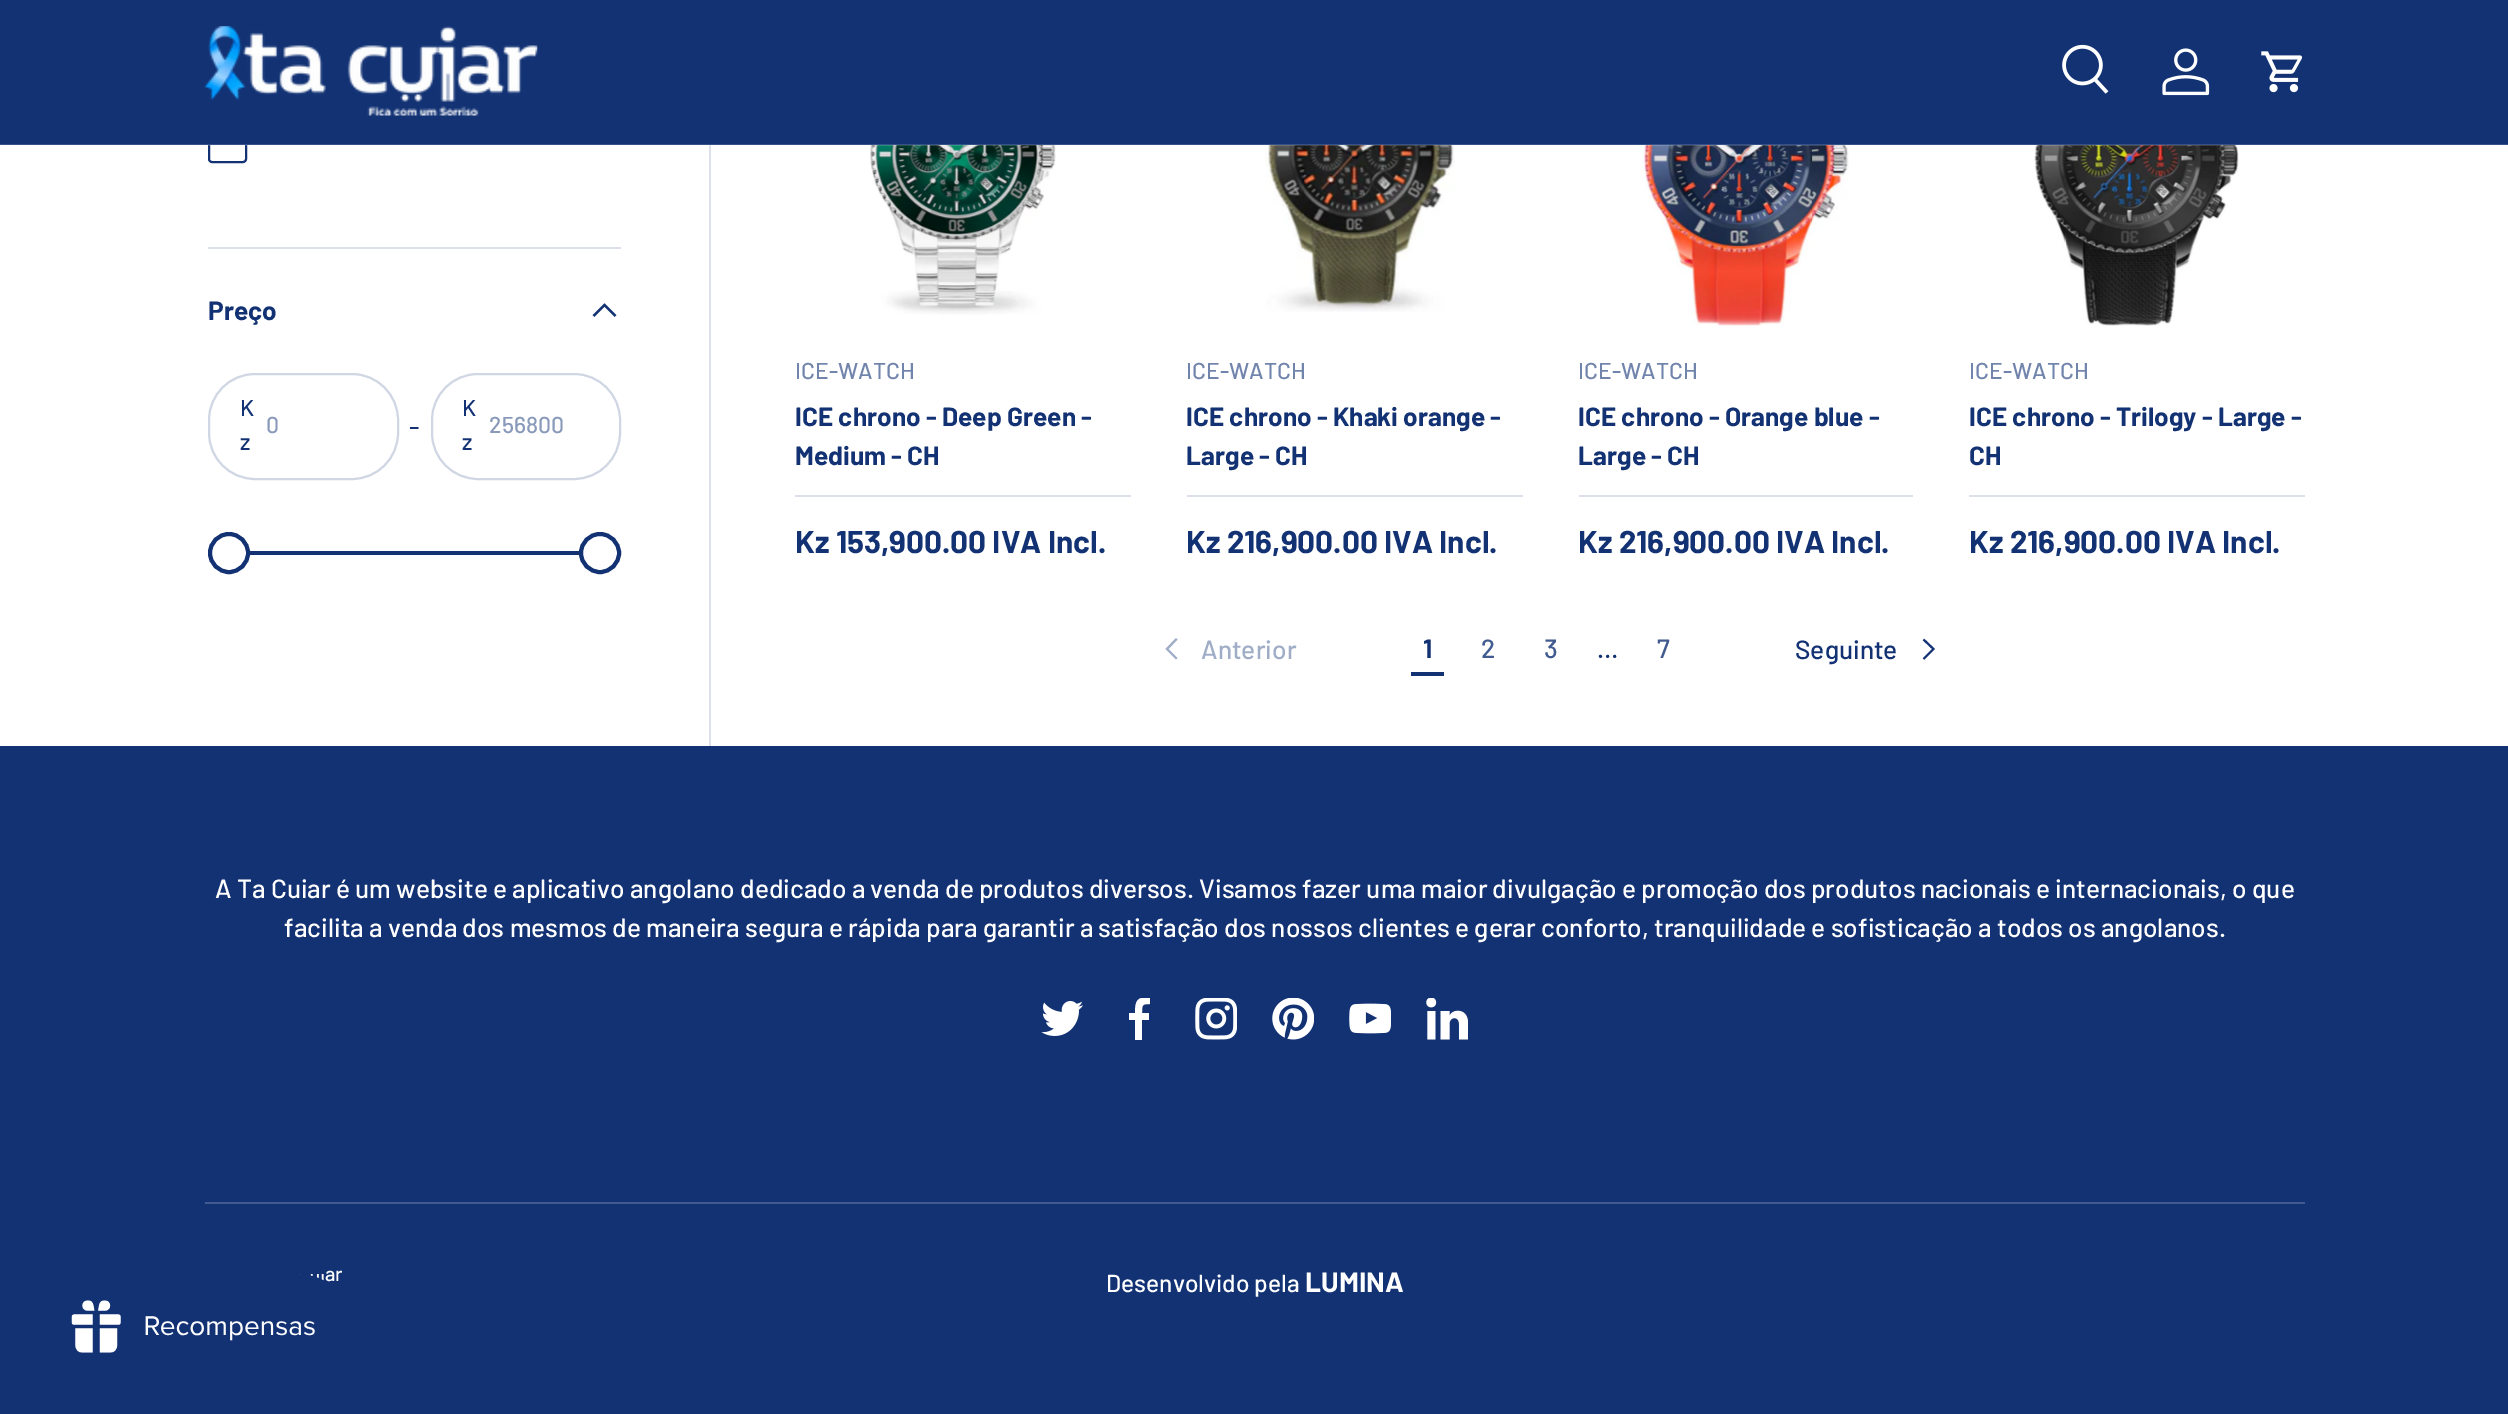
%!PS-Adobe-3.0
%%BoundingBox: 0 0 2508 1414
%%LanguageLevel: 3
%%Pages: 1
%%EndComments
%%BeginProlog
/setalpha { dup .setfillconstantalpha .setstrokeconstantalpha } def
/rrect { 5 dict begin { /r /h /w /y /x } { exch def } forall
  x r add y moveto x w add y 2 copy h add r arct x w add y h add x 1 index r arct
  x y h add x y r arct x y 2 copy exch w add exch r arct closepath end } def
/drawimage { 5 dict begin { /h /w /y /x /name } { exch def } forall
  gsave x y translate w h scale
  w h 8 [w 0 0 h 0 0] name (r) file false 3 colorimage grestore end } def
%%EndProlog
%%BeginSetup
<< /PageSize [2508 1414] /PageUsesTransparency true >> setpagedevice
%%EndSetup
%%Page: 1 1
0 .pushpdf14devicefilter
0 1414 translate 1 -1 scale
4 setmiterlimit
1 setgray
0 0 2508 1414 rectfill
0.071 0.196 0.455 setrgbcolor
2 setlinewidth
209 125 37 37 3 rrect stroke
0 0 2508 145 rectfill
0.859 0.878 0.918 setrgbcolor
709 145 2 601 rectfill
(images/5.raw) 870 145 186 170 drawimage
(images/6.raw) 1265 145 190 167 drawimage
(images/7.raw) 1638 145 211 181 drawimage
(images/8.raw) 2034 145 205 181 drawimage
0.15 setalpha
1 setgray
0 144 2508 2 rectfill
1 setalpha
(images/1.raw) 204 26 334 90 drawimage
(images/2.raw) 2062 44 47 50 drawimage
(images/3.raw) 2162 48 48 48 drawimage
(images/4.raw) 2261 51 42 42 drawimage
0.859 0.878 0.918 setrgbcolor
208 247 413 2 rectfill
0.071 0.196 0.455 setrgbcolor
2.2 setlinewidth
newpath 615.5 316 moveto 604.5 305 lineto 593.5 316 lineto stroke
0.816 0.839 0.89 setrgbcolor
2 setlinewidth
209 374 189 105 46 rrect stroke
432 374 188 105 46 rrect stroke
0.071 0.196 0.455 setrgbcolor
208 551 413 4 rectfill
1 setgray
newpath 229 553 19 0 360 arc closepath gsave fill grestore
0.071 0.196 0.455 setrgbcolor
4 setlinewidth
stroke
1 setgray
newpath 600 553 19 0 360 arc closepath gsave fill grestore
0.071 0.196 0.455 setrgbcolor
stroke
0.859 0.878 0.918 setrgbcolor
795 495 336 2 rectfill
1187 495 336 2 rectfill
1579 495 334 2 rectfill
1969 495 336 2 rectfill
0.627 0.678 0.78 setrgbcolor
newpath 1165.5 649 moveto 1176 638 lineto 1177.5 639.5 lineto 1168.5 649 lineto 1177.5 658 lineto 1176 659.5 lineto closepath fill
0.071 0.196 0.455 setrgbcolor
1411 672 33 4 rectfill
2 setlinewidth
newpath 1923.5 639.5 moveto 1933.5 649 lineto 1923.5 659 lineto stroke
0 746 2508 668 rectfill
(images/9.raw) 1041 1001 42 35 drawimage
gsave
1129 998 21 42 rectclip
1 setgray
newpath 1142 1020 moveto 1149 1020 lineto 1149 1013 lineto 1142 1013 lineto 1142 1005 1142 1004 1150 1004 curveto 1150 998 lineto 1137 996 1135 1001 1135 1013 curveto 1129 1013 lineto 1129 1020 lineto 1135 1020 lineto 1135 1040 lineto 1142 1040 lineto closepath fill
grestore
(images/10.raw) 1195 998 42 42 drawimage
(images/11.raw) 1272 998 42 42 drawimage
(images/12.raw) 1349 1003 42 31 drawimage
(images/13.raw) 1426 998 42 42 drawimage
0.255 0.357 0.565 setrgbcolor
205 1202 2100 2 rectfill
(images/14.raw) 71 1274 253 79 drawimage
/Barlow-Bold [26.25 0 0 -26.25 0 0] selectfont
0.071 0.196 0.455 setrgbcolor
208 320 moveto (Preço) show
/Barlow-Medium [23 0 0 -23 0 0] selectfont
240 416 moveto (K) show
240 450 moveto (z) show
0.537 0.6 0.729 setrgbcolor
266 433 moveto (0) show
/Barlow-Medium [26.25 0 0 -26.25 0 0] selectfont
0.071 0.196 0.455 setrgbcolor
409 436 moveto (-) show
/Barlow-Medium [23 0 0 -23 0 0] selectfont
462 416 moveto (K) show
462 450 moveto (z) show
0.537 0.6 0.729 setrgbcolor
489 433 moveto (256800) show
0.443 0.518 0.675 setrgbcolor
795 379 moveto (ICE-WATCH) show
/Barlow-Bold [26.25 0 0 -26.25 0 0] selectfont
0.071 0.196 0.455 setrgbcolor
795 426 moveto (ICE chrono - Deep Green -) show
795 465 moveto (Medium - CH) show
/Barlow-Bold [31.5 0 0 -31.5 0 0] selectfont
795 553 moveto (Kz 153,900.00 IVA Incl.) show
/Barlow-Medium [23 0 0 -23 0 0] selectfont
0.443 0.518 0.675 setrgbcolor
1186 379 moveto (ICE-WATCH) show
/Barlow-Bold [26.25 0 0 -26.25 0 0] selectfont
0.071 0.196 0.455 setrgbcolor
1186 426 moveto (ICE chrono - Khaki orange -) show
1186 465 moveto (Large - CH) show
/Barlow-Bold [31.5 0 0 -31.5 0 0] selectfont
1186 553 moveto (Kz 216,900.00 IVA Incl.) show
/Barlow-Medium [23 0 0 -23 0 0] selectfont
0.443 0.518 0.675 setrgbcolor
1578 379 moveto (ICE-WATCH) show
/Barlow-Bold [26.25 0 0 -26.25 0 0] selectfont
0.071 0.196 0.455 setrgbcolor
1578 426 moveto (ICE chrono - Orange blue -) show
1578 465 moveto (Large - CH) show
/Barlow-Bold [31.5 0 0 -31.5 0 0] selectfont
1578 553 moveto (Kz 216,900.00 IVA Incl.) show
/Barlow-Medium [23 0 0 -23 0 0] selectfont
0.443 0.518 0.675 setrgbcolor
1969 379 moveto (ICE-WATCH) show
/Barlow-Bold [26.25 0 0 -26.25 0 0] selectfont
0.071 0.196 0.455 setrgbcolor
1969 426 moveto (ICE chrono - Trilogy - Large -) show
1969 465 moveto (CH) show
/Barlow-Bold [31.5 0 0 -31.5 0 0] selectfont
1969 553 moveto (Kz 216,900.00 IVA Incl.) show
/Barlow-Medium [26.25 0 0 -26.25 0 0] selectfont
0.627 0.678 0.78 setrgbcolor
1201 659 moveto (Anterior) show
/Barlow-Bold [26.25 0 0 -26.25 0 0] selectfont
0.071 0.196 0.455 setrgbcolor
1423 658 moveto (1) show
/Barlow-Medium [26.25 0 0 -26.25 0 0] selectfont
0.255 0.357 0.565 setrgbcolor
1481 658 moveto (2) show
1544 658 moveto (3) show
0.071 0.196 0.455 setrgbcolor
1597 658 moveto (…) show
0.255 0.357 0.565 setrgbcolor
1657 658 moveto (7) show
0.071 0.196 0.455 setrgbcolor
1795 659 moveto (Seguinte) show
1 setgray
215 898 moveto (A Ta Cuiar é um website e aplicativo angolano dedicado a venda de produtos diversos. Visamos fazer uma maior divulgação e promoção dos produtos nacionais e internacionais, o que) show
284 937 moveto (facilita a venda dos mesmos de maneira segura e rápida para garantir a satisfação dos nossos clientes e gerar conforto, tranquilidade e sofisticação a todos os angolanos.) show
/Barlow-Medium [20 0 0 -20 0 0] selectfont
325 1281 moveto (ar) show
/Barlow-Medium [24.5 0 0 -24.5 0 0] selectfont
1106 1292 moveto (Desenvolvido pela) show
/Barlow-Bold [28 0 0 -28 0 0] selectfont
1305 1292 moveto (LUMINA) show
.poppdf14devicefilter showpage
%%EOF
